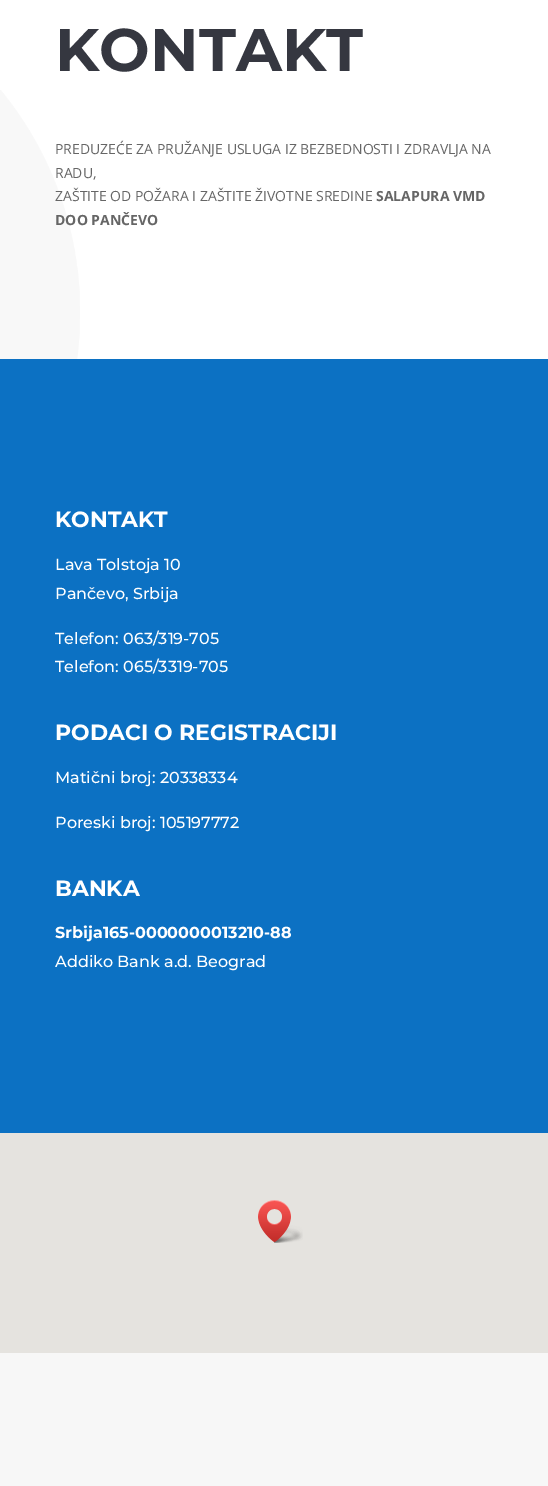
%!PS-Adobe-3.0
%%BoundingBox: 0 0 548 1486
%%LanguageLevel: 3
%%Pages: 1
%%EndComments
%%BeginProlog
/drawimage { 5 dict begin { /h /w /y /x /name } { exch def } forall
  gsave x y translate w h scale
  w h 8 [w 0 0 h 0 0] name (r) file false 3 colorimage grestore end } def
%%EndProlog
%%BeginSetup
<< /PageSize [548 1486] >> setpagedevice
%%EndSetup
%%Page: 1 1
0 1486 translate 1 -1 scale
4 setmiterlimit
1 setgray
0 0 548 1486 rectfill
(images/1.raw) 0 90 80 269 drawimage
0.047 0.443 0.765 setrgbcolor
0 359 548 774 rectfill
0.898 0.89 0.875 setrgbcolor
0 1133 548 220 rectfill
(images/2.raw) 258 1200 45 43 drawimage
0.969 setgray
0 1353 548 133 rectfill
/Montserrat-Thin [60 0 0 -60 0 0] selectfont
0.208 0.216 0.251 setrgbcolor
55 71 moveto (KONTAKT) show
/OpenSans-Regular [14 0 0 -14 0 0] selectfont
0.4 setgray
55 154 moveto (PREDUZEĆE ZA PRUŽANJE USLUGA IZ BEZBEDNOSTI I ZDRAVLJA NA) show
55 178 moveto (RADU,) show
55 201 moveto (ZAŠTITE OD POŽARA I ZAŠTITE ŽIVOTNE SREDINE) show
/OpenSans-Bold [14 0 0 -14 0 0] selectfont
376 201 moveto (SALAPURA VMD) show
55 225 moveto (DOO PANČEVO) show
/Montserrat-Thin [22 0 0 -22 0 0] selectfont
1 setgray
55 527 moveto (KONTAKT) show
/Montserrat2-Thin [16 0 0 -16 0 0] selectfont
55 570 moveto (Lava Tolstoja 10) show
55 599 moveto (Pančevo, Srbija) show
55 644 moveto (Telefon: 063/319-705) show
55 672 moveto (Telefon: 065/3319-705) show
/Montserrat-Thin [22 0 0 -22 0 0] selectfont
55 740 moveto (PODACI O REGISTRACIJI) show
/Montserrat2-Thin [16 0 0 -16 0 0] selectfont
55 783 moveto (Matični broj: 20338334) show
55 828 moveto (Poreski broj: 105197772) show
/Montserrat-Thin [22 0 0 -22 0 0] selectfont
55 896 moveto (BANKA) show
/Montserrat-Thin [16 0 0 -16 0 0] selectfont
55 938 moveto (Srbija165-0000000013210-88) show
/Montserrat2-Thin [16 0 0 -16 0 0] selectfont
55 967 moveto (Addiko Bank a.d. Beograd) show
showpage
%%EOF
